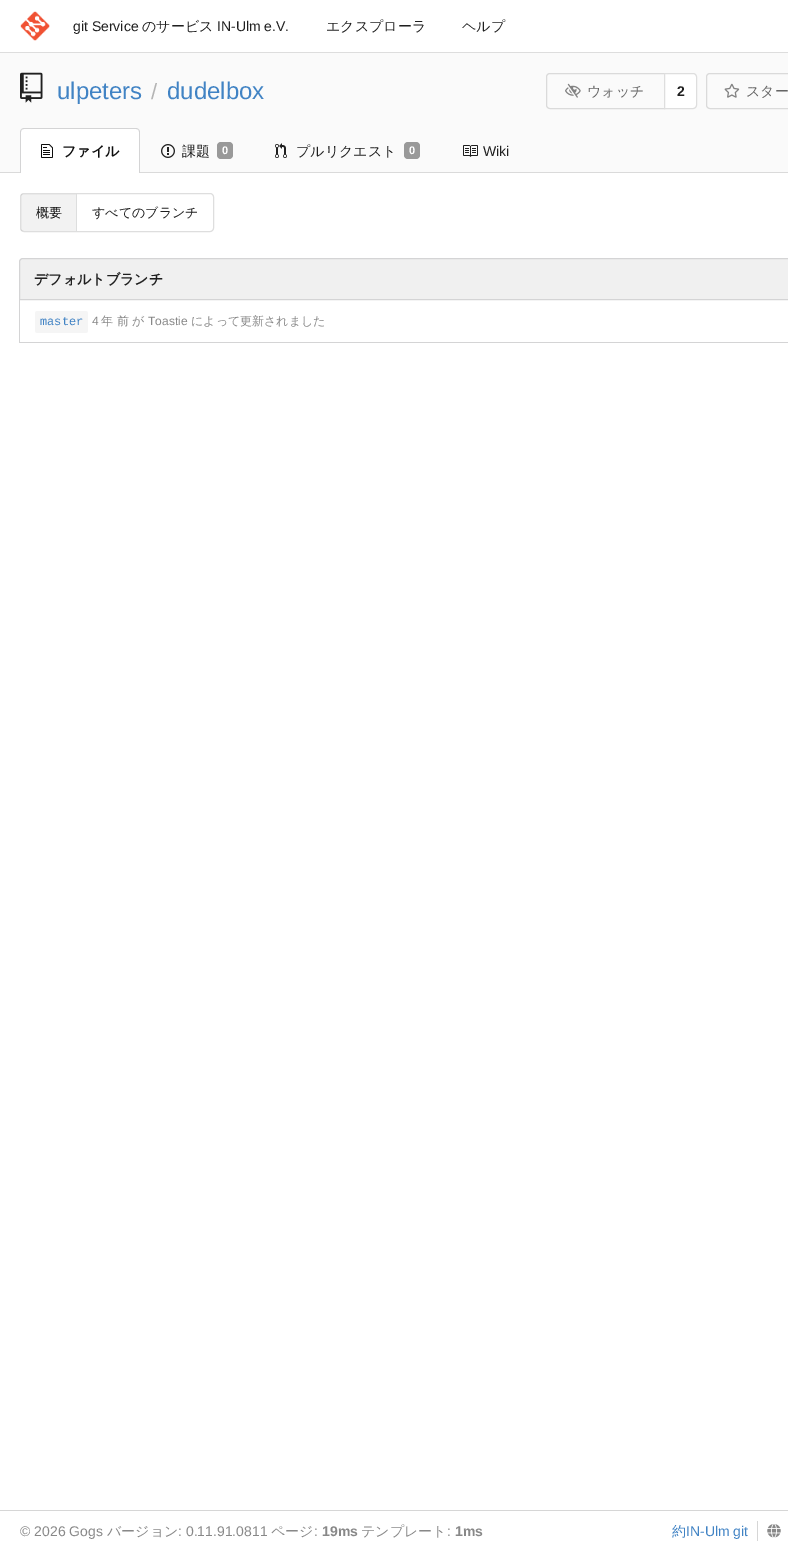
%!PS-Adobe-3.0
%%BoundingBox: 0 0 788 1550
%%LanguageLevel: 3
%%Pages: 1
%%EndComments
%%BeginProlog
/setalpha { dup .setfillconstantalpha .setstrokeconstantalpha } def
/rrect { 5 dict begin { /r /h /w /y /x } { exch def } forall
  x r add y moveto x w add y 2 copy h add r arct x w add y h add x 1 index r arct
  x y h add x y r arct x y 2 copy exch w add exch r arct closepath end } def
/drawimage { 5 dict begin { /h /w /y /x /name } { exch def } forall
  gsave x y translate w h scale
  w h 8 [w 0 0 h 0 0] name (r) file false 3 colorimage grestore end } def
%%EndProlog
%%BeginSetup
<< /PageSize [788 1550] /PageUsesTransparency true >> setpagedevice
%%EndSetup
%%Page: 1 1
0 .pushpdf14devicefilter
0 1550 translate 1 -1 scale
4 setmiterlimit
1 setgray
0 0 788 1550 rectfill
0.867 setgray
0 52 788 1 rectfill
(images/1.raw) 20 11 30 30 drawimage
0.98 setgray
0 53 788 119 rectfill
(images/2.raw) 20 72 23 31 drawimage
0.855 setgray
newpath 550 73.5 moveto 664.5 73.5 lineto 664.5 108.5 lineto 550 108.5 lineto 548 108.5 546.5 107 546.5 105 curveto 546.5 77 lineto 546.5 75 548 73.5 550 73.5 curveto closepath stroke
(images/3.raw) 565 83 16 15 drawimage
1 setgray
newpath 664.5 73.5 moveto 693 73.5 lineto 695 73.5 696.5 75 696.5 77 curveto 696.5 105 lineto 696.5 107 695 108.5 693 108.5 curveto 664.5 108.5 lineto closepath gsave fill grestore
0.871 setgray
stroke
0.855 setgray
newpath 710 73.5 moveto 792.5 73.5 lineto 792.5 108.5 lineto 710 108.5 lineto 708 108.5 706.5 107 706.5 105 curveto 706.5 77 lineto 706.5 75 708 73.5 710 73.5 curveto closepath stroke
(images/4.raw) 724 83 16 15 drawimage
0 172 788 1 rectfill
1 setgray
newpath 24 128 moveto 136 128 lineto 138 128 140 130 140 132 curveto 140 173 lineto 20 173 lineto 20 132 lineto 20 130 22 128 24 128 curveto closepath fill
0.831 0.831 0.835 setrgbcolor
newpath 24 128 moveto 136 128 lineto 138 128 140 130 140 132 curveto 140 173 lineto 20 173 lineto 20 132 lineto 20 130 22 128 24 128 curveto closepath 24 129 moveto 136 129 lineto 138 129 139 130 139 132 curveto 139 173 lineto 21 173 lineto 21 132 lineto 21 130 22 129 24 129 curveto closepath eofill
(images/5.raw) 41 144 12 14 drawimage
(images/6.raw) 161 144 14 14 drawimage
0.6 setgray
217 142 16 17 4 rrect fill
(images/7.raw) 275 143 12 15 drawimage
404 142 16 17 4 rrect fill
(images/8.raw) 463 145 15 12 drawimage
0.871 setgray
20.5 193.5 193 38 3.5 rrect stroke
0.05 setalpha
0 setgray
21 194 55 37 rectfill
1 setalpha
0.867 0.871 0.871 setrgbcolor
76 194 1 37 rectfill
0.941 setgray
newpath 23 258.5 moveto 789 258.5 lineto 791 258.5 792.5 260 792.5 262 curveto 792.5 299.5 lineto 19.5 299.5 lineto 19.5 262 lineto 19.5 260 21 258.5 23 258.5 curveto closepath gsave fill grestore
0.831 0.831 0.835 setrgbcolor
stroke
19 342 769 1 rectfill
19 300 1 43 rectfill
0.961 setgray
newpath 37.5 311 moveto 40 311 lineto 40 333 lineto 37.5 333 lineto 36 333 35 332 35 330.5 curveto 35 313.5 lineto 35 312 36 311 37.5 311 curveto closepath fill
40 311 43 22 rectfill
newpath 83 311 moveto 85.5 311 lineto 87 311 88 312 88 313.5 curveto 88 330.5 lineto 88 332 87 333 85.5 333 curveto 83 333 lineto closepath fill
0.839 setgray
0 1510 788 1 rectfill
757 1521 1 20 rectfill
(images/9.raw) 767 1524 14 14 drawimage
/LiberationSans-Regular [14 0 0 -14 0 0] selectfont
0.122 setgray
73 31 moveto (git Service) show
/WenQuanYiZenHei-Medium [14 0 0 -14 0 0] selectfont
142 31 moveto (のサービス) show
/LiberationSans-Regular [14 0 0 -14 0 0] selectfont
217 31 moveto (IN-Ulm e.V.) show
/WenQuanYiZenHei-Medium [14 0 0 -14 0 0] selectfont
326 31 moveto (エクスプローラ) show
462 31 moveto (ヘルプ) show
/LiberationSans-Regular [24 0 0 -24 0 0] selectfont
0.255 0.514 0.769 setrgbcolor
57 99 moveto (ulpeters) show
/LiberationSans-Regular [22 0 0 -22 0 0] selectfont
0.706 setgray
151 99 moveto (/) show
/LiberationSans-Regular [24 0 0 -24 0 0] selectfont
0.255 0.514 0.769 setrgbcolor
167 99 moveto (dudelbox) show
/WenQuanYiZenHei-Medium [14 0 0 -14 0 0] selectfont
0.392 setgray
587 96 moveto (ウォッチ) show
/LiberationSans-Bold [14 0 0 -14 0 0] selectfont
0.122 setgray
677 96 moveto (2) show
/WenQuanYiZenHei-Medium [14 0 0 -14 0 0] selectfont
0.392 setgray
746 96 moveto (スター) show
/WenQuanYiZenHei-Bold [14 0 0 -14 0 0] selectfont
0.051 setgray
62 156 moveto (ファイル) show
/WenQuanYiZenHei-Medium [14 0 0 -14 0 0] selectfont
0.122 setgray
182 156 moveto (課題) show
/LiberationSans-Bold [11 0 0 -11 0 0] selectfont
1 setgray
222 154 moveto (0) show
/WenQuanYiZenHei-Medium [14 0 0 -14 0 0] selectfont
0.122 setgray
296 156 moveto (プルリクエスト) show
/LiberationSans-Bold [11 0 0 -11 0 0] selectfont
1 setgray
409 154 moveto (0) show
/LiberationSans-Regular [14 0 0 -14 0 0] selectfont
0.122 setgray
483 156 moveto (Wiki) show
/WenQuanYiZenHei-Medium [13 0 0 -13 0 0] selectfont
0.051 setgray
36 217 moveto (概要) show
0.122 setgray
92 217 moveto (すべてのブランチ) show
/WenQuanYiZenHei-Bold [14 0 0 -14 0 0] selectfont
34 284 moveto (デフォルトブランチ) show
/LiberationMono-Regular [12 0 0 -12 0 0] selectfont
0.255 0.514 0.769 setrgbcolor
40 325 moveto (master) show
/LiberationSans-Regular [12 0 0 -12 0 0] selectfont
0.533 setgray
92 325 moveto (4) show
/WenQuanYiZenHei-Medium [12 0 0 -12 0 0] selectfont
101 325 moveto (年 前) show
132 325 moveto (が) show
/LiberationSans-Regular [12 0 0 -12 0 0] selectfont
148 325 moveto (Toastie) show
/WenQuanYiZenHei-Medium [12 0 0 -12 0 0] selectfont
191 325 moveto (によって更新されました) show
/LiberationSans-Regular [14 0 0 -14 0 0] selectfont
20 1536 moveto (© 2026 Gogs) show
/WenQuanYiZenHei-Medium [14 0 0 -14 0 0] selectfont
107 1536 moveto (バージョン) show
/LiberationSans-Regular [14 0 0 -14 0 0] selectfont
178 1536 moveto (: 0.11.91.0811) show
/WenQuanYiZenHei-Medium [14 0 0 -14 0 0] selectfont
271 1536 moveto (ページ) show
/LiberationSans-Regular [14 0 0 -14 0 0] selectfont
314 1536 moveto (:) show
/LiberationSans-Bold [14 0 0 -14 0 0] selectfont
322 1536 moveto (19ms) show
/WenQuanYiZenHei-Medium [14 0 0 -14 0 0] selectfont
361 1536 moveto (テンプレート) show
/LiberationSans-Regular [14 0 0 -14 0 0] selectfont
447 1536 moveto (:) show
/LiberationSans-Bold [14 0 0 -14 0 0] selectfont
455 1536 moveto (1ms) show
/WenQuanYiZenHei-Medium [14 0 0 -14 0 0] selectfont
0.255 0.514 0.769 setrgbcolor
672 1536 moveto (約) show
/LiberationSans-Regular [14 0 0 -14 0 0] selectfont
686 1536 moveto (IN-Ulm git) show
.poppdf14devicefilter showpage
%%EOF
